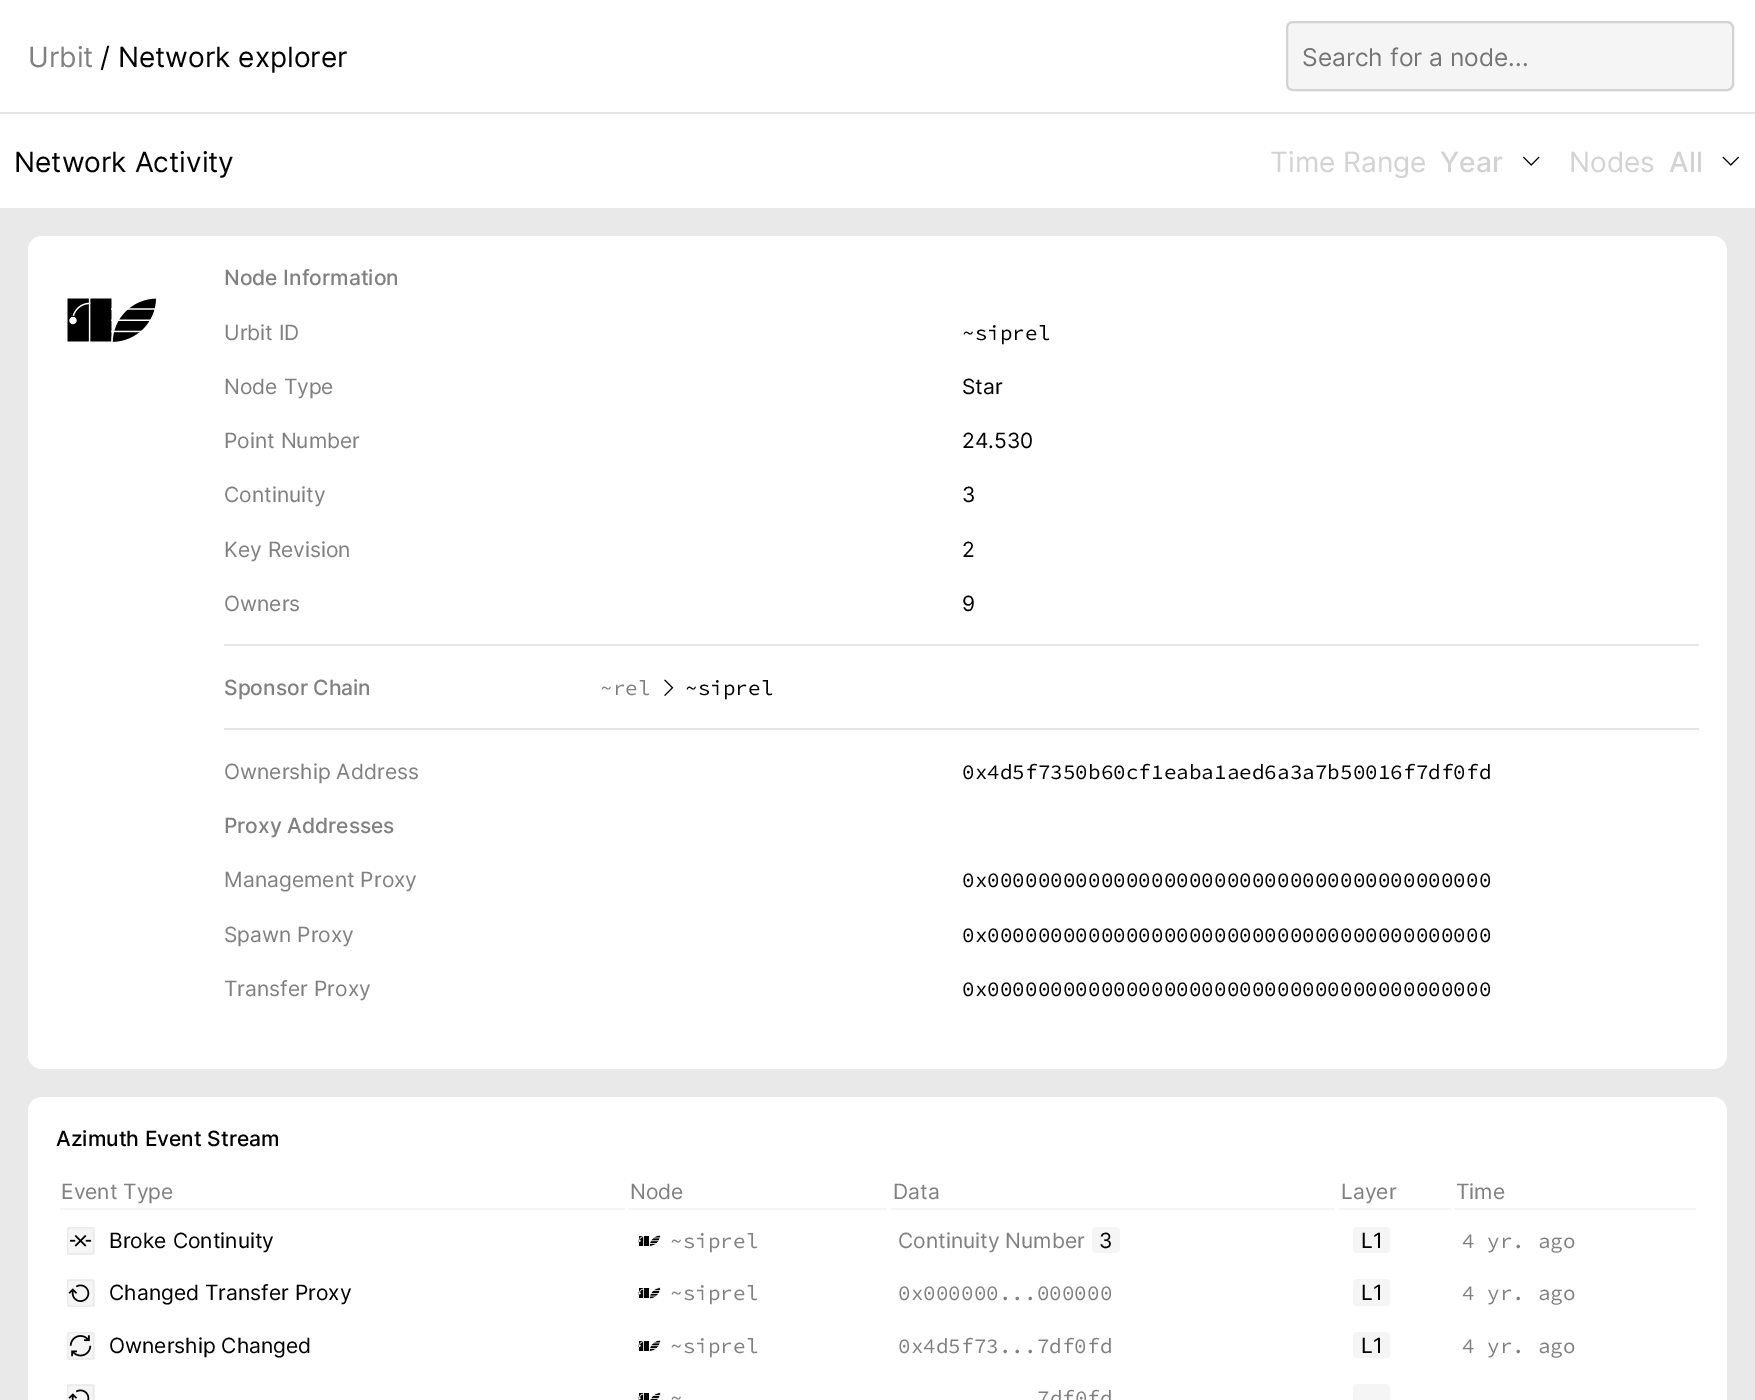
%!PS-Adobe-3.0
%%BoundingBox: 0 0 1755 1400
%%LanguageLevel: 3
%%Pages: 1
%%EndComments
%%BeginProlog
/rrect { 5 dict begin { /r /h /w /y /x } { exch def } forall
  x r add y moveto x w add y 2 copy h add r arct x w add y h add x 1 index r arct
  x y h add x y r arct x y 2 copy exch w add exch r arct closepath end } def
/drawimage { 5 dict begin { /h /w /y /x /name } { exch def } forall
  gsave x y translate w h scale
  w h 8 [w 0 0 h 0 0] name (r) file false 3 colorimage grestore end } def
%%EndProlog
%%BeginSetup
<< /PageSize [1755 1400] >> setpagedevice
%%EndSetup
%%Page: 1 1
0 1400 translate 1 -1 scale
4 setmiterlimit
1 setgray
0 0 1755 1400 rectfill
0.902 setgray
0 112 1755 2 rectfill
0.961 setgray
1287 22 446 68 6 rrect gsave fill grestore
0.827 setgray
2 setlinewidth
stroke
(images/1.raw) 1523 156 17 10 drawimage
(images/2.raw) 1722 156 17 10 drawimage
0.914 setgray
0 208 1755 1192 rectfill
1 setgray
28 236 1699 833 14 rrect fill
(images/3.raw) 67 298 89 44 drawimage
0.902 setgray
224 644 1475 2 rectfill
224 728 1475 2 rectfill
(images/4.raw) 664 679 10 17 drawimage
1 setgray
28 1097 1699 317 14 rrect fill
0.961 setgray
60 1208 565 2 rectfill
628 1208 259 2 rectfill
891 1208 444 2 rectfill
1339 1208 112 2 rectfill
1454 1208 242 2 rectfill
(images/5.raw) 67 1227 28 28 drawimage
(images/6.raw) 638 1235 23 12 drawimage
1092 1227 28 26 4 rrect fill
1353 1227 37 26 4 rrect fill
(images/7.raw) 67 1279 28 28 drawimage
(images/8.raw) 638 1287 23 12 drawimage
1353 1279 37 27 4 rrect fill
(images/9.raw) 67 1332 28 28 drawimage
(images/6.raw) 638 1340 23 12 drawimage
1353 1332 37 26 4 rrect fill
(images/10.raw) 67 1384 28 16 drawimage
(images/11.raw) 638 1392 23 8 drawimage
1353 1384 37 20 4 rrect fill
/Inter-Regular [28 0 0 -28 0 0] selectfont
0.502 setgray
28 67 moveto (Urbit) show
0 setgray
100 67 moveto (/ Network explorer) show
/Inter-Regular [24.5 0 0 -24.5 0 0] selectfont
0.459 setgray
1302 66 moveto (Search for a node...) show
/Inter-Regular [28 0 0 -28 0 0] selectfont
0 setgray
14 172 moveto (Network Activity) show
0.827 setgray
1270 172 moveto (Time Range) show
/Inter-Medium [28 0 0 -28 0 0] selectfont
1440 172 moveto (Year) show
/Inter-Regular [28 0 0 -28 0 0] selectfont
1569 172 moveto (Nodes) show
/Inter-Medium [28 0 0 -28 0 0] selectfont
1669 172 moveto (All) show
/Inter-Medium [21 0 0 -21 0 0] selectfont
0.502 setgray
224 285 moveto (Node Information) show
/Inter-Regular [21 0 0 -21 0 0] selectfont
224 340 moveto (Urbit ID) show
224 394 moveto (Node Type) show
224 448 moveto (Point Number) show
/SourceCodePro-Regular [21 0 0 -21 0 0] selectfont
0 setgray
962 340 moveto (~siprel) show
/Inter-Regular [21 0 0 -21 0 0] selectfont
962 394 moveto (Star) show
962 448 moveto (24.530) show
0.502 setgray
224 502 moveto (Continuity) show
224 557 moveto (Key Revision) show
224 611 moveto (Owners) show
0 setgray
962 502 moveto (3) show
962 557 moveto (2) show
962 611 moveto (9) show
/Inter-Medium [21 0 0 -21 0 0] selectfont
0.502 setgray
224 695 moveto (Sponsor Chain) show
/SourceCodePro-Regular [21 0 0 -21 0 0] selectfont
600 695 moveto (~rel) show
0 setgray
685 695 moveto (~siprel) show
/Inter-Regular [21 0 0 -21 0 0] selectfont
0.502 setgray
224 779 moveto (Ownership Address) show
/SourceCodePro-Regular [21 0 0 -21 0 0] selectfont
0 setgray
962 779 moveto (0x4d5f7350b60cf1eaba1aed6a3a7b50016f7df0fd) show
/Inter-Medium [21 0 0 -21 0 0] selectfont
0.502 setgray
224 833 moveto (Proxy Addresses) show
/Inter-Regular [21 0 0 -21 0 0] selectfont
224 887 moveto (Management Proxy) show
/SourceCodePro-Regular [21 0 0 -21 0 0] selectfont
0 setgray
962 887 moveto (0x0000000000000000000000000000000000000000) show
/Inter-Regular [21 0 0 -21 0 0] selectfont
0.502 setgray
224 942 moveto (Spawn Proxy) show
/SourceCodePro-Regular [21 0 0 -21 0 0] selectfont
0 setgray
962 942 moveto (0x0000000000000000000000000000000000000000) show
/Inter-Regular [21 0 0 -21 0 0] selectfont
0.502 setgray
224 996 moveto (Transfer Proxy) show
/SourceCodePro-Regular [21 0 0 -21 0 0] selectfont
0 setgray
962 996 moveto (0x0000000000000000000000000000000000000000) show
/Inter-Medium [21 0 0 -21 0 0] selectfont
56 1146 moveto (Azimuth Event Stream) show
/Inter-Regular [21 0 0 -21 0 0] selectfont
0.502 setgray
61 1199 moveto (Event Type) show
630 1199 moveto (Node) show
893 1199 moveto (Data) show
1341 1199 moveto (Layer) show
1456 1199 moveto (Time) show
0 setgray
109 1248 moveto (Broke Continuity) show
/SourceCodePro-Regular [21 0 0 -21 0 0] selectfont
0.502 setgray
670 1248 moveto (~siprel) show
/Inter-Regular [21 0 0 -21 0 0] selectfont
898 1248 moveto (Continuity Number) show
0 setgray
1099 1248 moveto (3) show
1361 1248 moveto (L1) show
/SourceCodePro-Regular [21 0 0 -21 0 0] selectfont
0.502 setgray
1462 1248 moveto (4 yr. ago) show
/Inter-Regular [21 0 0 -21 0 0] selectfont
0 setgray
109 1300 moveto (Changed Transfer Proxy) show
/SourceCodePro-Regular [21 0 0 -21 0 0] selectfont
0.502 setgray
670 1300 moveto (~siprel) show
898 1300 moveto (0x000000...000000) show
/Inter-Regular [21 0 0 -21 0 0] selectfont
0 setgray
1361 1300 moveto (L1) show
/SourceCodePro-Regular [21 0 0 -21 0 0] selectfont
0.502 setgray
1462 1300 moveto (4 yr. ago) show
/Inter-Regular [21 0 0 -21 0 0] selectfont
0 setgray
109 1353 moveto (Ownership Changed) show
/SourceCodePro-Regular [21 0 0 -21 0 0] selectfont
0.502 setgray
670 1353 moveto (~siprel) show
898 1353 moveto (0x4d5f73...7df0fd) show
/Inter-Regular [21 0 0 -21 0 0] selectfont
0 setgray
1361 1353 moveto (L1) show
/SourceCodePro-Regular [21 0 0 -21 0 0] selectfont
0.502 setgray
1462 1353 moveto (4 yr. ago) show
670 1405 moveto (~) show
1037 1405 moveto (7df0fd) show
showpage
%%EOF
